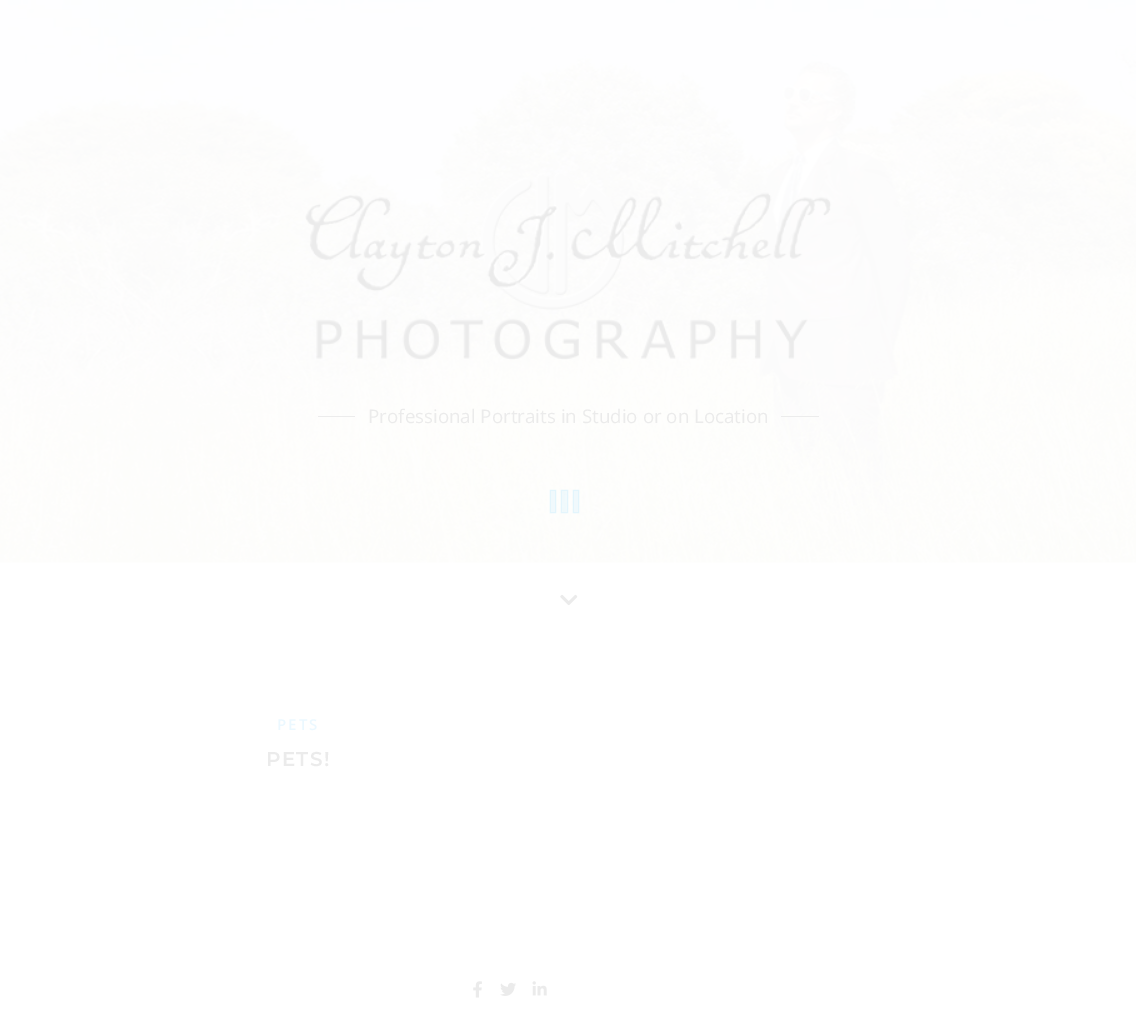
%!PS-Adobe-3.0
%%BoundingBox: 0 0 1136 1014
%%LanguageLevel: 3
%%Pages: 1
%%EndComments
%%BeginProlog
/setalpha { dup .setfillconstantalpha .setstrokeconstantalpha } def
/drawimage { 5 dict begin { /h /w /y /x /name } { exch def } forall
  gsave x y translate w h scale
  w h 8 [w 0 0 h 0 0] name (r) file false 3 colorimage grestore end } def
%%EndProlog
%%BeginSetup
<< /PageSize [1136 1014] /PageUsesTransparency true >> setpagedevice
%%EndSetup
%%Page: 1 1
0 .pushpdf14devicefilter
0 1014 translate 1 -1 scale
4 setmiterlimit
1 setgray
0 0 1136 1014 rectfill
(images/1.raw) 0 0 1136 563 drawimage
(images/2.raw) 305 171 527 189 drawimage
0.925 setgray
318 416 37 1 rectfill
781 416 38 1 rectfill
(images/3.raw) 560 594 18 12 drawimage
(images/4.raw) 473 981 9 17 drawimage
(images/5.raw) 500 982 17 14 drawimage
(images/6.raw) 532 981 15 15 drawimage
0.941 0.976 0.988 setrgbcolor
newpath 550.45 490.45 moveto 555.55 490.45 lineto 555.55 512.55 lineto 550.45 512.55 lineto closepath gsave fill grestore
0.89 0.961 0.988 setrgbcolor
0.9 setlinewidth
stroke
0.05 setalpha
0 0.663 1 setrgbcolor
newpath 561.45 490.45 moveto 567.55 490.45 lineto 567.55 512.55 lineto 561.45 512.55 lineto closepath fill
1 setalpha
0.894 0.961 0.988 setrgbcolor
newpath 561.45 490.45 moveto 567.55 490.45 lineto 567.55 512.55 lineto 561.45 512.55 lineto closepath stroke
0.941 0.976 0.988 setrgbcolor
newpath 573.45 490.45 moveto 578.55 490.45 lineto 578.55 512.55 lineto 573.45 512.55 lineto closepath gsave fill grestore
0.89 0.961 0.988 setrgbcolor
stroke
/OpenSans-Regular [18.75 0 0 -18.75 0 0] selectfont
0.922 setgray
368 423 moveto (Professional Portraits in Studio or on Location) show
/OpenSans-SemiBold [15 0 0 -15 0 0] selectfont
0.922 0.973 1 setrgbcolor
277 730 moveto 2 0 (PETS) ashow
/Montserrat-SemiBold [20 0 0 -20 0 0] selectfont
0.922 setgray
266 766 moveto 1.25 0 (PETS!) ashow
.poppdf14devicefilter showpage
%%EOF
